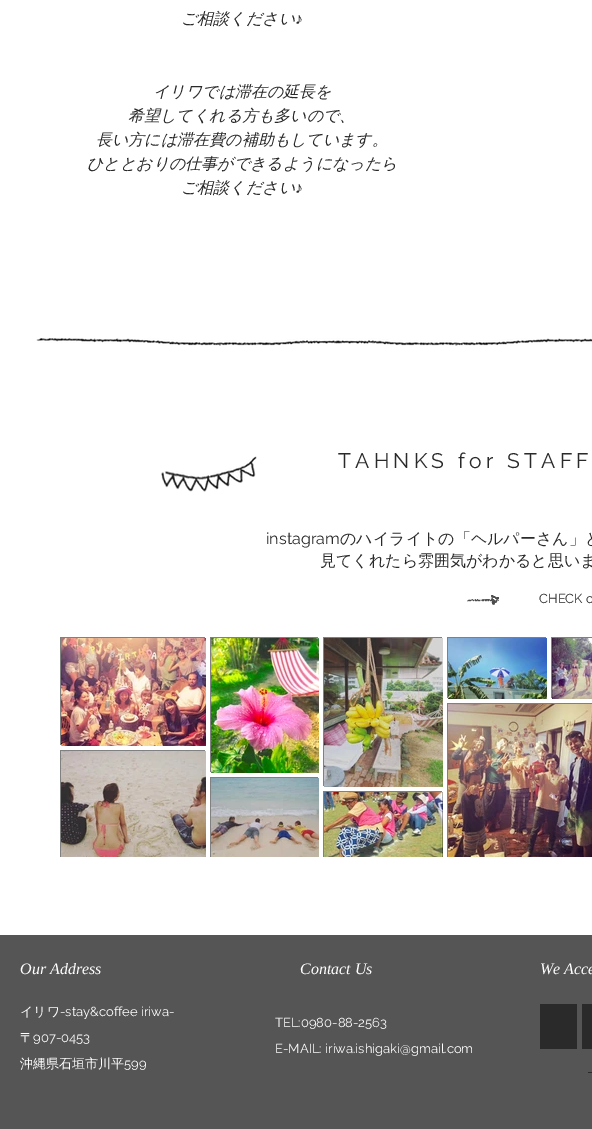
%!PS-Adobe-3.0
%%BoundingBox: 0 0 592 1129
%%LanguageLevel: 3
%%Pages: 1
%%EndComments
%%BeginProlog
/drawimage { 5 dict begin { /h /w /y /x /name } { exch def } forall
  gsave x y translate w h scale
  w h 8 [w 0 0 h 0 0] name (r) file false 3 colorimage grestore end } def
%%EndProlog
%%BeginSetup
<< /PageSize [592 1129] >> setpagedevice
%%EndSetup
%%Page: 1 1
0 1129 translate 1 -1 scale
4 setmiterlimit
1 setgray
0 0 592 1129 rectfill
(images/1.raw) 36 338 556 8 drawimage
(images/2.raw) 161 456 96 36 drawimage
(images/3.raw) 467 595 32 10 drawimage
0.502 setgray
60 637 145 108 rectfill
(images/4.raw) 61 638 145 108 drawimage
60 750 145 107 rectfill
(images/5.raw) 61 751 145 106 drawimage
210 637 108 135 rectfill
(images/6.raw) 211 638 108 135 drawimage
210 777 108 80 rectfill
(images/7.raw) 211 778 108 79 drawimage
323 637 119 149 rectfill
(images/8.raw) 324 638 119 149 drawimage
323 791 119 66 rectfill
(images/9.raw) 324 792 119 65 drawimage
447 637 99 61 rectfill
(images/10.raw) 448 638 99 61 drawimage
551 637 41 61 rectfill
(images/11.raw) 552 638 40 61 drawimage
447 703 145 154 rectfill
(images/12.raw) 448 704 144 153 drawimage
0.333 setgray
0 935 592 194 rectfill
0.165 setgray
540 1004 37 45 rectfill
582 1004 10 45 rectfill
588 1072 4 1 rectfill
/WenQuanYiZenHei-MediumItalic [16 0 0 -16 0 0] selectfont
181 24 moveto (ご相談ください) show
/LiberationSerif-Italic [16 0 0 -16 0 0] selectfont
295 24 moveto (♪) show
/WenQuanYiZenHei-MediumItalic [16 0 0 -16 0 0] selectfont
153 97 moveto (イリワでは滞在の延長を) show
128 121 moveto (希望してくれる方も多いので、) show
96 145 moveto (長い方には滞在費の補助もしています。) show
87 169 moveto (ひととおりの仕事ができるようになったら) show
181 193 moveto (ご相談ください) show
/LiberationSerif-Italic [16 0 0 -16 0 0] selectfont
295 193 moveto (♪) show
/Raleway-Regular [21 0 0 -21 0 0] selectfont
338 468 moveto 4.25 0 (TAHNKS for STAFF) ashow
/Raleway-Regular [16 0 0 -16 0 0] selectfont
266 544 moveto (instagram) show
/WenQuanYiZenHei-Medium [16 0 0 -16 0 0] selectfont
340 544 moveto (のハイライトの「ヘルパーさん」と) show
320 566 moveto (見てくれたら雰囲気がわかると思いま) show
/Raleway-Regular [13 0 0 -13 0 0] selectfont
539 603 moveto (CHECK o) show
/LiberationSerif-Italic [16 0 0 -16 0 0] selectfont
1 setgray
20 974 moveto (Our Address) show
300 974 moveto (Contact Us) show
540 974 moveto (We Acce) show
/WenQuanYiZenHei-Medium [13 0 0 -13 0 0] selectfont
20 1016 moveto (イリワ) show
/Raleway-Regular [13 0 0 -13 0 0] selectfont
60 1016 moveto (-stay&coffee iriwa-) show
/WenQuanYiZenHei-Medium [13 0 0 -13 0 0] selectfont
20 1042 moveto (〒) show
/Raleway-Regular [13 0 0 -13 0 0] selectfont
33 1042 moveto (907-0453) show
/WenQuanYiZenHei-Medium [13 0 0 -13 0 0] selectfont
20 1068 moveto (沖縄県石垣市川平) show
/Raleway-Regular [13 0 0 -13 0 0] selectfont
124 1068 moveto (599) show
275 1027 moveto (TEL:0980-88-2563) show
275 1053 moveto (E-MAIL: iriwa.ishigaki@gmail.com) show
showpage
%%EOF
